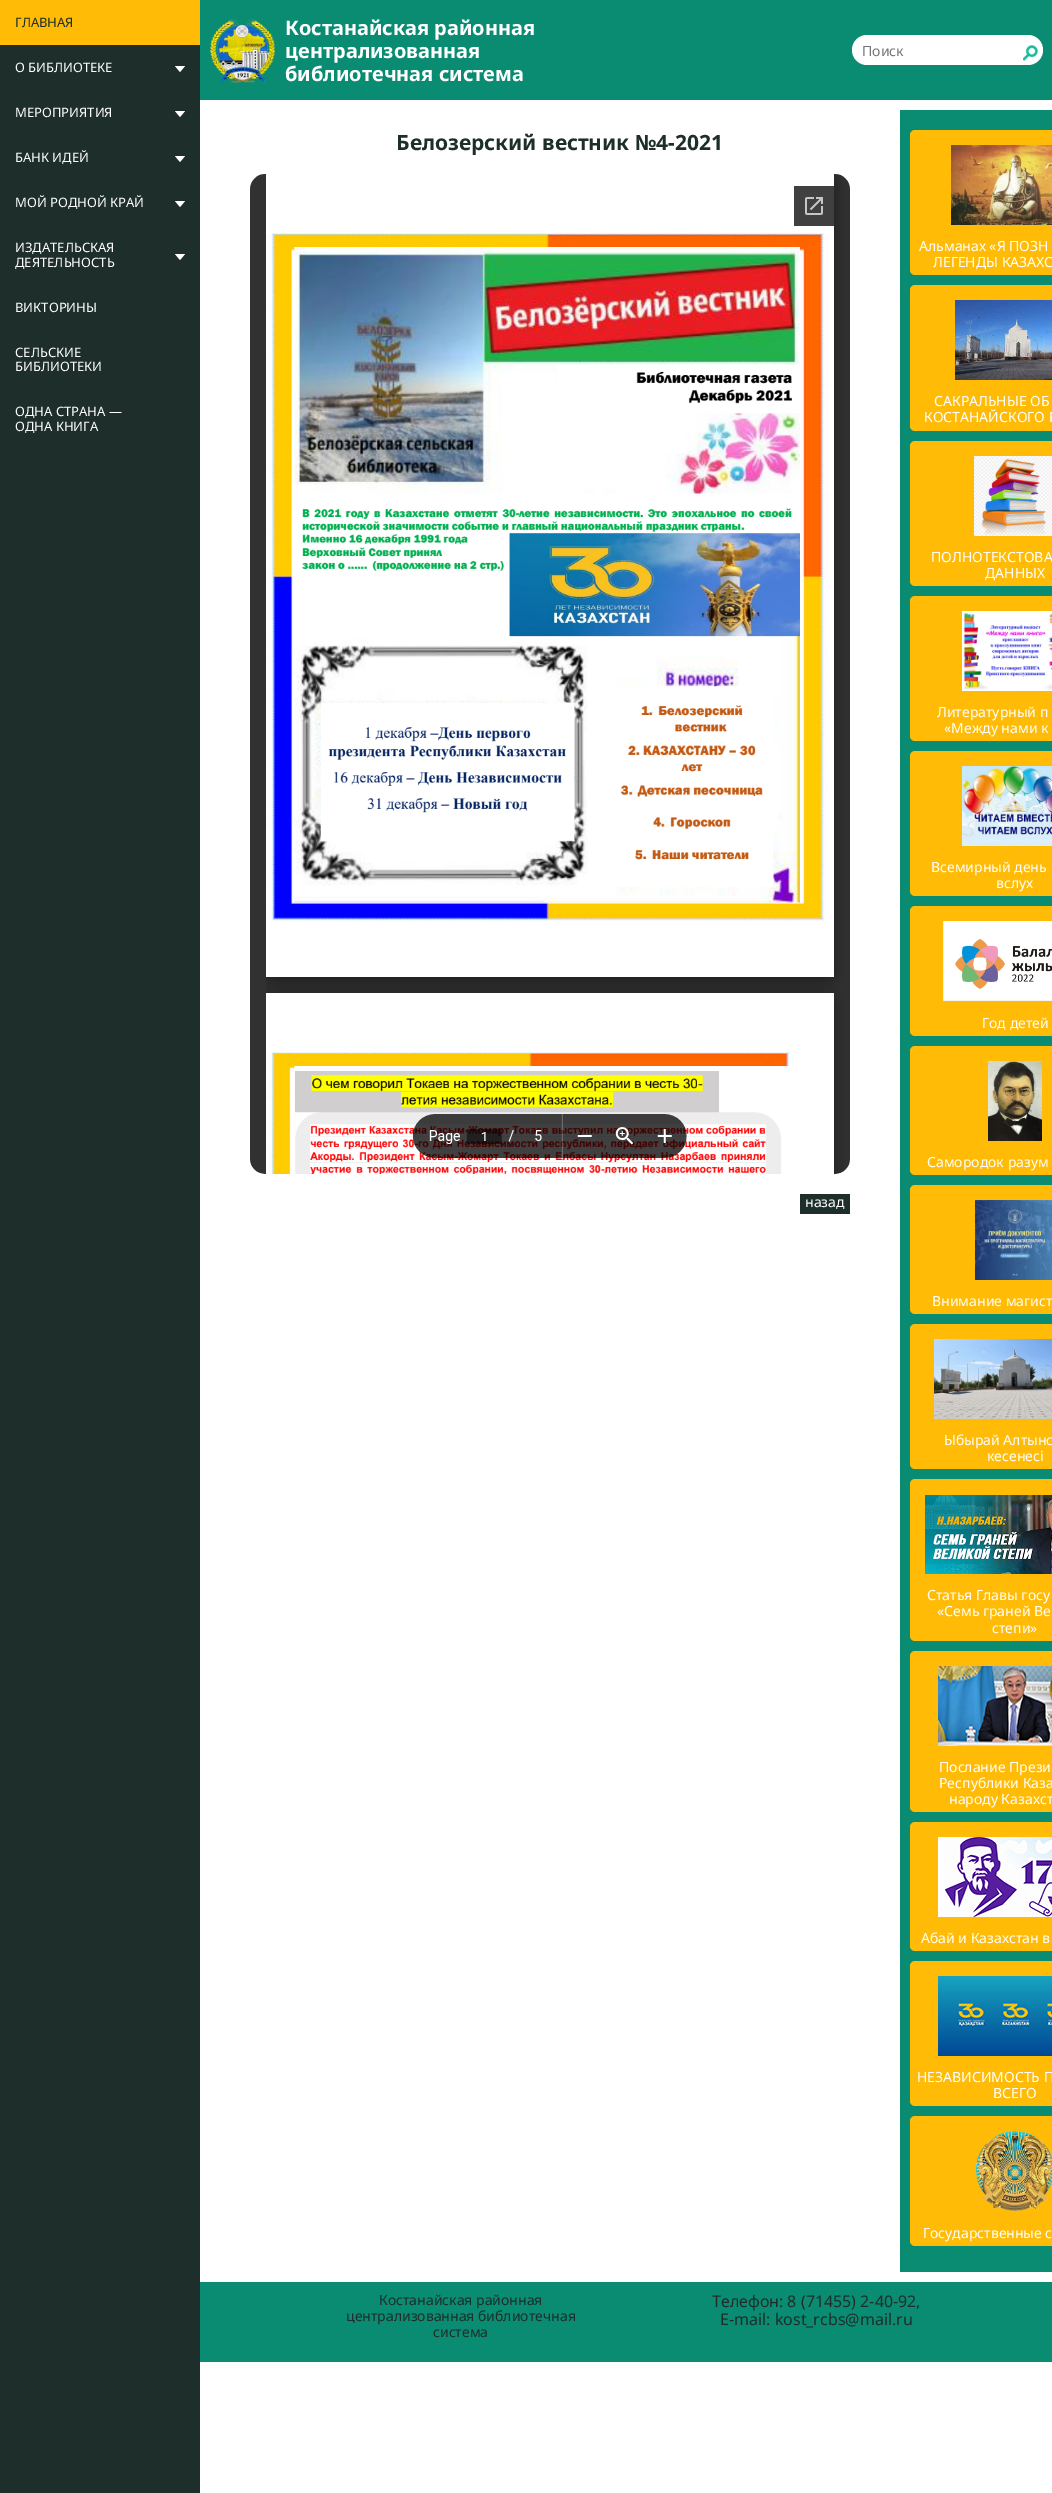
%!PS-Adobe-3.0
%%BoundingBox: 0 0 1052 2493
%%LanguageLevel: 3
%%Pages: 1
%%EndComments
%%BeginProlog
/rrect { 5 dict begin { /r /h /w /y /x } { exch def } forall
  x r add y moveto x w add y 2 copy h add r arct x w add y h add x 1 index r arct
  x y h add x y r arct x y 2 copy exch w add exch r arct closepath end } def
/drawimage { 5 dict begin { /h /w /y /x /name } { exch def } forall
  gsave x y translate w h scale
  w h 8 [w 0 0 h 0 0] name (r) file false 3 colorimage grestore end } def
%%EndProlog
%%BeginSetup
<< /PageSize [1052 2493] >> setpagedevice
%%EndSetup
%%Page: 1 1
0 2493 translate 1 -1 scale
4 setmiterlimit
1 setgray
0 0 1052 2493 rectfill
0.114 0.18 0.169 setrgbcolor
0 45 200 2448 rectfill
1 0.733 0.02 setrgbcolor
0 0 200 45 rectfill
1 setgray
newpath 175 66 moveto 185 66 lineto 180 72 lineto closepath fill
newpath 175 111 moveto 185 111 lineto 180 117 lineto closepath fill
newpath 175 156 moveto 185 156 lineto 180 162 lineto closepath fill
newpath 175 201 moveto 185 201 lineto 180 207 lineto closepath fill
newpath 175 254 moveto 185 254 lineto 180 260 lineto closepath fill
0.039 0.549 0.447 setrgbcolor
200 0 852 100 rectfill
(images/1.raw) 210 19 65 64 drawimage
1 setgray
852 35 191 30 15 rrect fill
(images/2.raw) 1023 45 15 16 drawimage
(images/3.raw) 250 174 600 1000 drawimage
0.114 0.18 0.169 setrgbcolor
800 1194 50 20 rectfill
0.039 0.549 0.447 setrgbcolor
900 110 152 2162 rectfill
1 0.733 0.02 setrgbcolor
910 130 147 145 5 rrect fill
(images/4.raw) 951 145 101 80 drawimage
910 285 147 146 5 rrect fill
(images/5.raw) 955 300 97 80 drawimage
910 441 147 145 5 rrect fill
(images/6.raw) 974 456 78 80 drawimage
910 596 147 145 5 rrect fill
(images/7.raw) 962 611 90 80 drawimage
910 751 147 145 5 rrect fill
(images/8.raw) 962 766 90 80 drawimage
910 906 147 130 5 rrect fill
(images/9.raw) 943 921 109 80 drawimage
910 1046 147 129 5 rrect fill
(images/10.raw) 988 1061 54 80 drawimage
910 1185 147 129 5 rrect fill
(images/11.raw) 975 1200 77 80 drawimage
910 1324 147 145 5 rrect fill
(images/12.raw) 934 1339 118 80 drawimage
910 1479 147 162 5 rrect fill
(images/13.raw) 925 1495 127 79 drawimage
910 1651 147 161 5 rrect fill
(images/14.raw) 938 1666 114 80 drawimage
910 1822 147 129 5 rrect fill
(images/15.raw) 938 1837 114 80 drawimage
910 1961 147 145 5 rrect fill
(images/16.raw) 938 1976 114 80 drawimage
910 2116 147 130 5 rrect fill
(images/17.raw) 976 2131 76 80 drawimage
0.039 0.549 0.447 setrgbcolor
200 2282 852 80 rectfill
/NotoSans-Regular [13 0 0 -13 0 0] selectfont
0.114 0.18 0.169 setrgbcolor
15 27 moveto (ГЛАВНАЯ) show
1 setgray
15 72 moveto (О БИБЛИОТЕКЕ) show
15 117 moveto (МЕРОПРИЯТИЯ) show
15 162 moveto (БАНК ИДЕЙ) show
15 207 moveto (МОЙ РОДНОЙ КРАЙ) show
15 252 moveto (ИЗДАТЕЛЬСКАЯ) show
15 267 moveto (ДЕЯТЕЛЬНОСТЬ) show
15 312 moveto (ВИКТОРИНЫ) show
15 357 moveto (СЕЛЬСКИЕ) show
15 371 moveto (БИБЛИОТЕКИ) show
15 416 moveto (ОДНА СТРАНА —) show
15 431 moveto (ОДНА КНИГА) show
/NotoSans-Bold [20 0 0 -20 0 0] selectfont
285 35 moveto (Костанайская районная) show
285 58 moveto (централизованная) show
285 81 moveto (библиотечная система) show
/NotoSans-Regular [14 0 0 -14 0 0] selectfont
0.459 setgray
862 56 moveto (Поиск) show
/NotoSans-Bold [21 0 0 -21 0 0] selectfont
0.114 0.18 0.169 setrgbcolor
396 150 moveto (Белозерский вестник №4-2021) show
/NotoSans-Regular [14 0 0 -14 0 0] selectfont
1 setgray
805 1207 moveto (назад) show
919 251 moveto (Альманах «Я ПОЗН) show
933 267 moveto (ЛЕГЕНДЫ КАЗАХС) show
934 406 moveto (САКРАЛЬНЫЕ ОБ) show
924 422 moveto (КОСТАНАЙСКОГО Р) show
931 562 moveto (ПОЛНОТЕКСТОВА) show
985 578 moveto (ДАННЫХ) show
937 717 moveto (Литературный п) show
944 733 moveto («Между нами к) show
931 872 moveto (Всемирный день) show
996 888 moveto (вслух) show
982 1028 moveto (Год детей) show
927 1167 moveto (Самородок разум) show
932 1306 moveto (Внимание магист) show
944 1445 moveto (Ыбырай Алтынс) show
987 1461 moveto (кесенесі) show
927 1600 moveto (Статья Главы госу) show
937 1616 moveto («Семь граней Ве) show
992 1633 moveto (степи») show
939 1772 moveto (Послание Прези) show
939 1788 moveto (Республики Каза) show
949 1804 moveto (народу Казахст) show
921 1943 moveto (Абай и Казахстан в) show
917 2082 moveto (НЕЗАВИСИМОСТЬ П) show
993 2098 moveto (ВСЕГО) show
923 2238 moveto (Государственные с) show
0.114 0.18 0.169 setrgbcolor
379 2305 moveto (Костанайская районная) show
346 2321 moveto (централизованная библиотечная) show
433 2337 moveto (система) show
/NotoSans-Regular [16 0 0 -16 0 0] selectfont
712 2307 moveto (Телефон: 8 \(71455\) 2-40-92,) show
720 2325 moveto (E-mail: kost_rcbs@mail.ru) show
showpage
%%EOF
